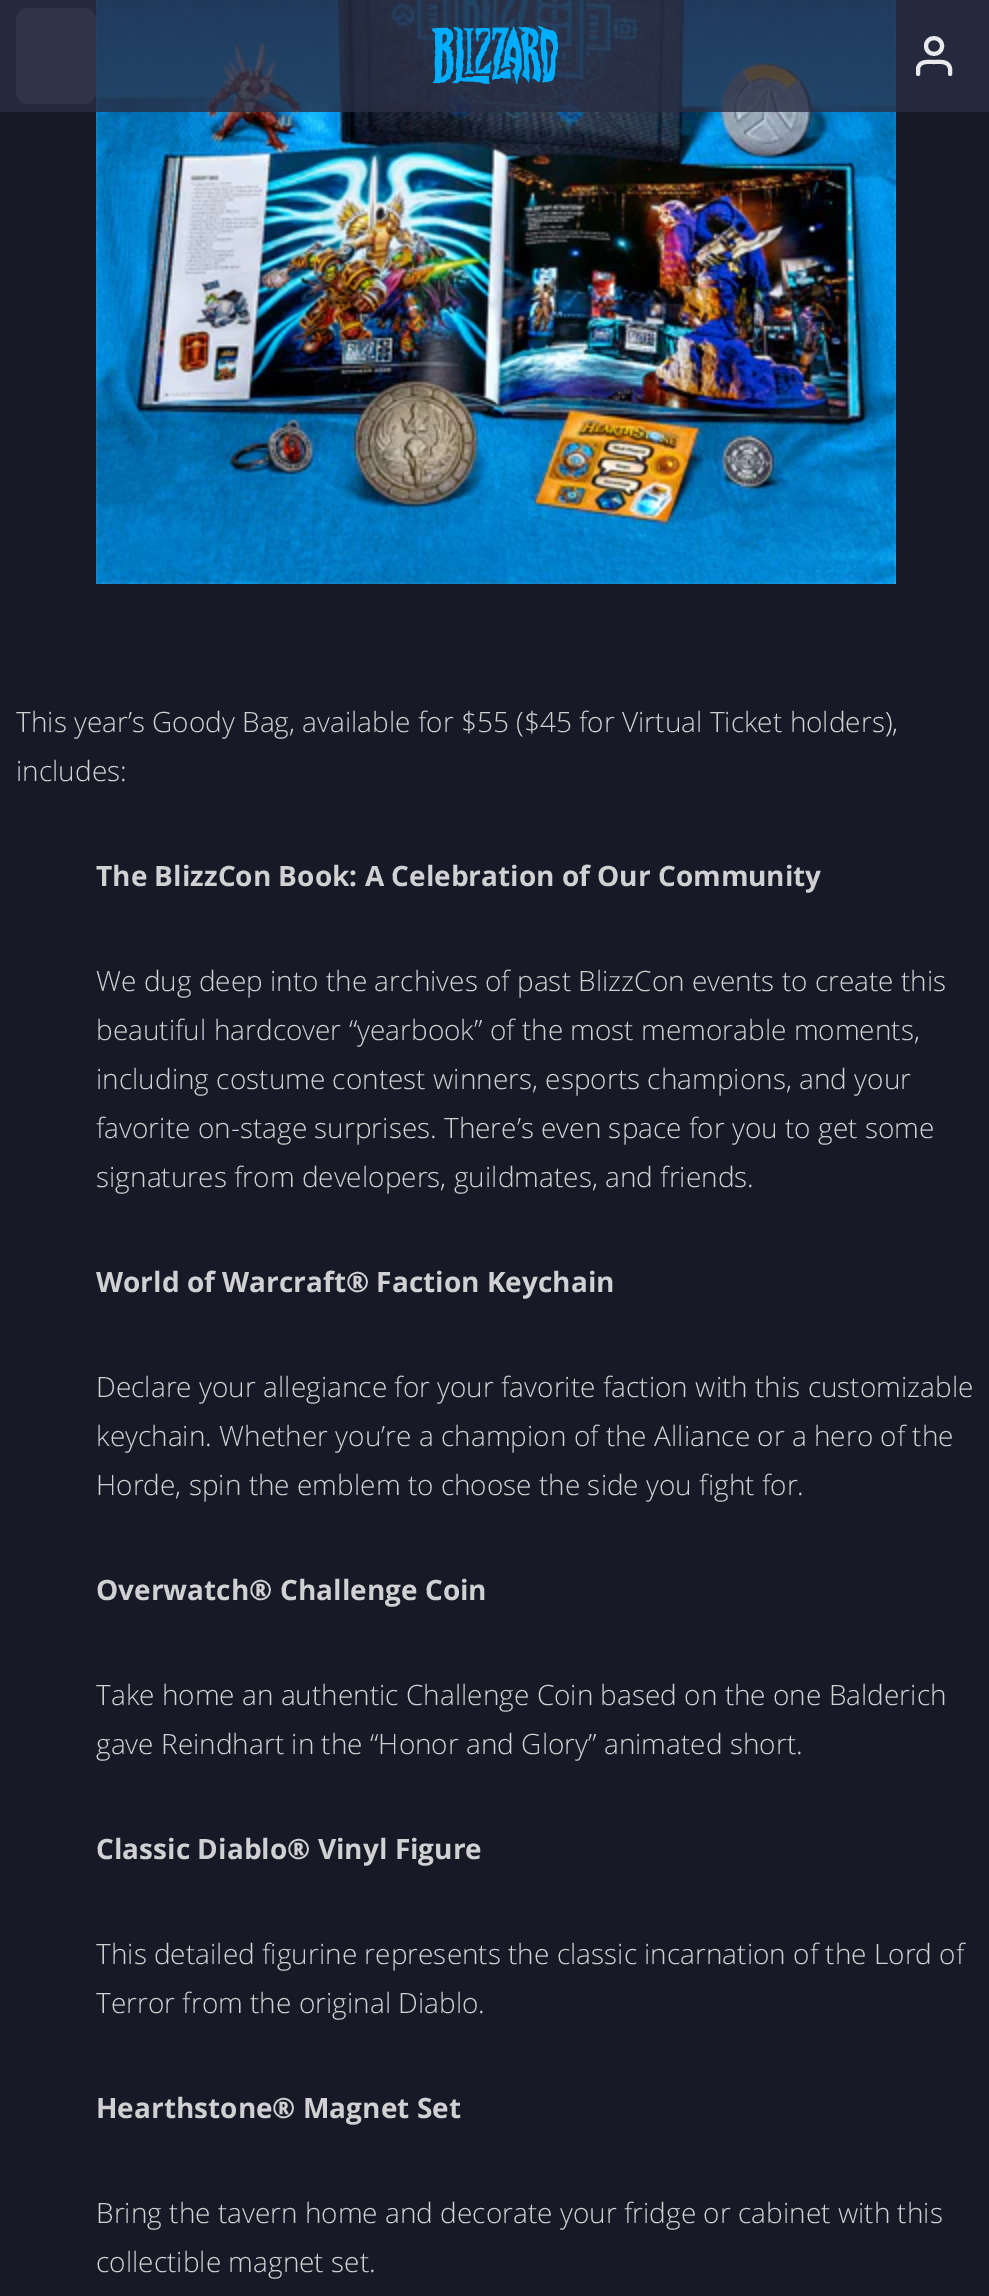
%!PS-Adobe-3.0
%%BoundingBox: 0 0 989 2296
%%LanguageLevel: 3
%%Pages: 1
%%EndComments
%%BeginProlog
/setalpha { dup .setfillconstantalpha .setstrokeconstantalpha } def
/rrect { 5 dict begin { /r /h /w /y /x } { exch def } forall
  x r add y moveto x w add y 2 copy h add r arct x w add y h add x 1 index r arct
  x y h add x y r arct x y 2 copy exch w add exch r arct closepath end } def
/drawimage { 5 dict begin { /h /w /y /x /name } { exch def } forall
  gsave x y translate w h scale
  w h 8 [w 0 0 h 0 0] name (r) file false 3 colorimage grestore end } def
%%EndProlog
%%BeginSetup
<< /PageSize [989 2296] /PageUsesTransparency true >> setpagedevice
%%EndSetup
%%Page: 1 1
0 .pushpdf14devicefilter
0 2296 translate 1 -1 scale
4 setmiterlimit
0.09 0.098 0.149 setrgbcolor
0 0 989 2296 rectfill
(images/2.raw) 96 0 800 584 drawimage
0.8 setalpha
0.157 0.176 0.263 setrgbcolor
0 0 989 112 rectfill
1 setalpha
0.188 0.204 0.278 setrgbcolor
16 8 80 96 12 rrect fill
(images/1.raw) 432 26 127 58 drawimage
0.914 0.918 0.925 setrgbcolor
4 setlinewidth
1 setlinecap
1 setlinejoin
newpath 950 74 moveto 950 68.5 lineto 948.5 60.5 940 62 934 62 curveto 928 62 919.5 60.5 918 68.5 curveto 918 74 lineto 942 46 moveto 942 56.5 926 56.5 926 46 curveto 926 35.5 942 35.5 942 46 curveto stroke
/OpenSans-Light [28 0 0 -28 0 0] selectfont
0.82 0.82 0.831 setrgbcolor
16 732 moveto (This year’s Goody Bag, available for $55 \($45 for Virtual Ticket holders\),) show
16 781 moveto (includes:) show
/OpenSans-Bold [28 0 0 -28 0 0] selectfont
96 886 moveto (The BlizzCon Book: A Celebration of Our Community) show
/OpenSans-Light [28 0 0 -28 0 0] selectfont
96 991 moveto (We dug deep into the archives of past BlizzCon events to create this) show
96 1040 moveto (beautiful hardcover “yearbook” of the most memorable moments,) show
96 1089 moveto (including costume contest winners, esports champions, and your) show
96 1138 moveto (favorite on-stage surprises. There’s even space for you to get some) show
96 1187 moveto (signatures from developers, guildmates, and friends.) show
/OpenSans-Bold [28 0 0 -28 0 0] selectfont
96 1292 moveto (World of Warcraft® Faction Keychain) show
/OpenSans-Light [28 0 0 -28 0 0] selectfont
96 1397 moveto (Declare your allegiance for your favorite faction with this customizable) show
96 1446 moveto (keychain. Whether you’re a champion of the Alliance or a hero of the) show
96 1495 moveto (Horde, spin the emblem to choose the side you fight for.) show
/OpenSans-Bold [28 0 0 -28 0 0] selectfont
96 1600 moveto (Overwatch® Challenge Coin) show
/OpenSans-Light [28 0 0 -28 0 0] selectfont
96 1705 moveto (Take home an authentic Challenge Coin based on the one Balderich) show
96 1754 moveto (gave Reindhart in the “Honor and Glory” animated short.) show
/OpenSans-Bold [28 0 0 -28 0 0] selectfont
96 1859 moveto (Classic Diablo® Vinyl Figure) show
/OpenSans-Light [28 0 0 -28 0 0] selectfont
96 1964 moveto (This detailed figurine represents the classic incarnation of the Lord of) show
96 2013 moveto (Terror from the original Diablo.) show
/OpenSans-Bold [28 0 0 -28 0 0] selectfont
96 2118 moveto (Hearthstone® Magnet Set) show
/OpenSans-Light [28 0 0 -28 0 0] selectfont
96 2223 moveto (Bring the tavern home and decorate your fridge or cabinet with this) show
96 2272 moveto (collectible magnet set.) show
.poppdf14devicefilter showpage
%%EOF
